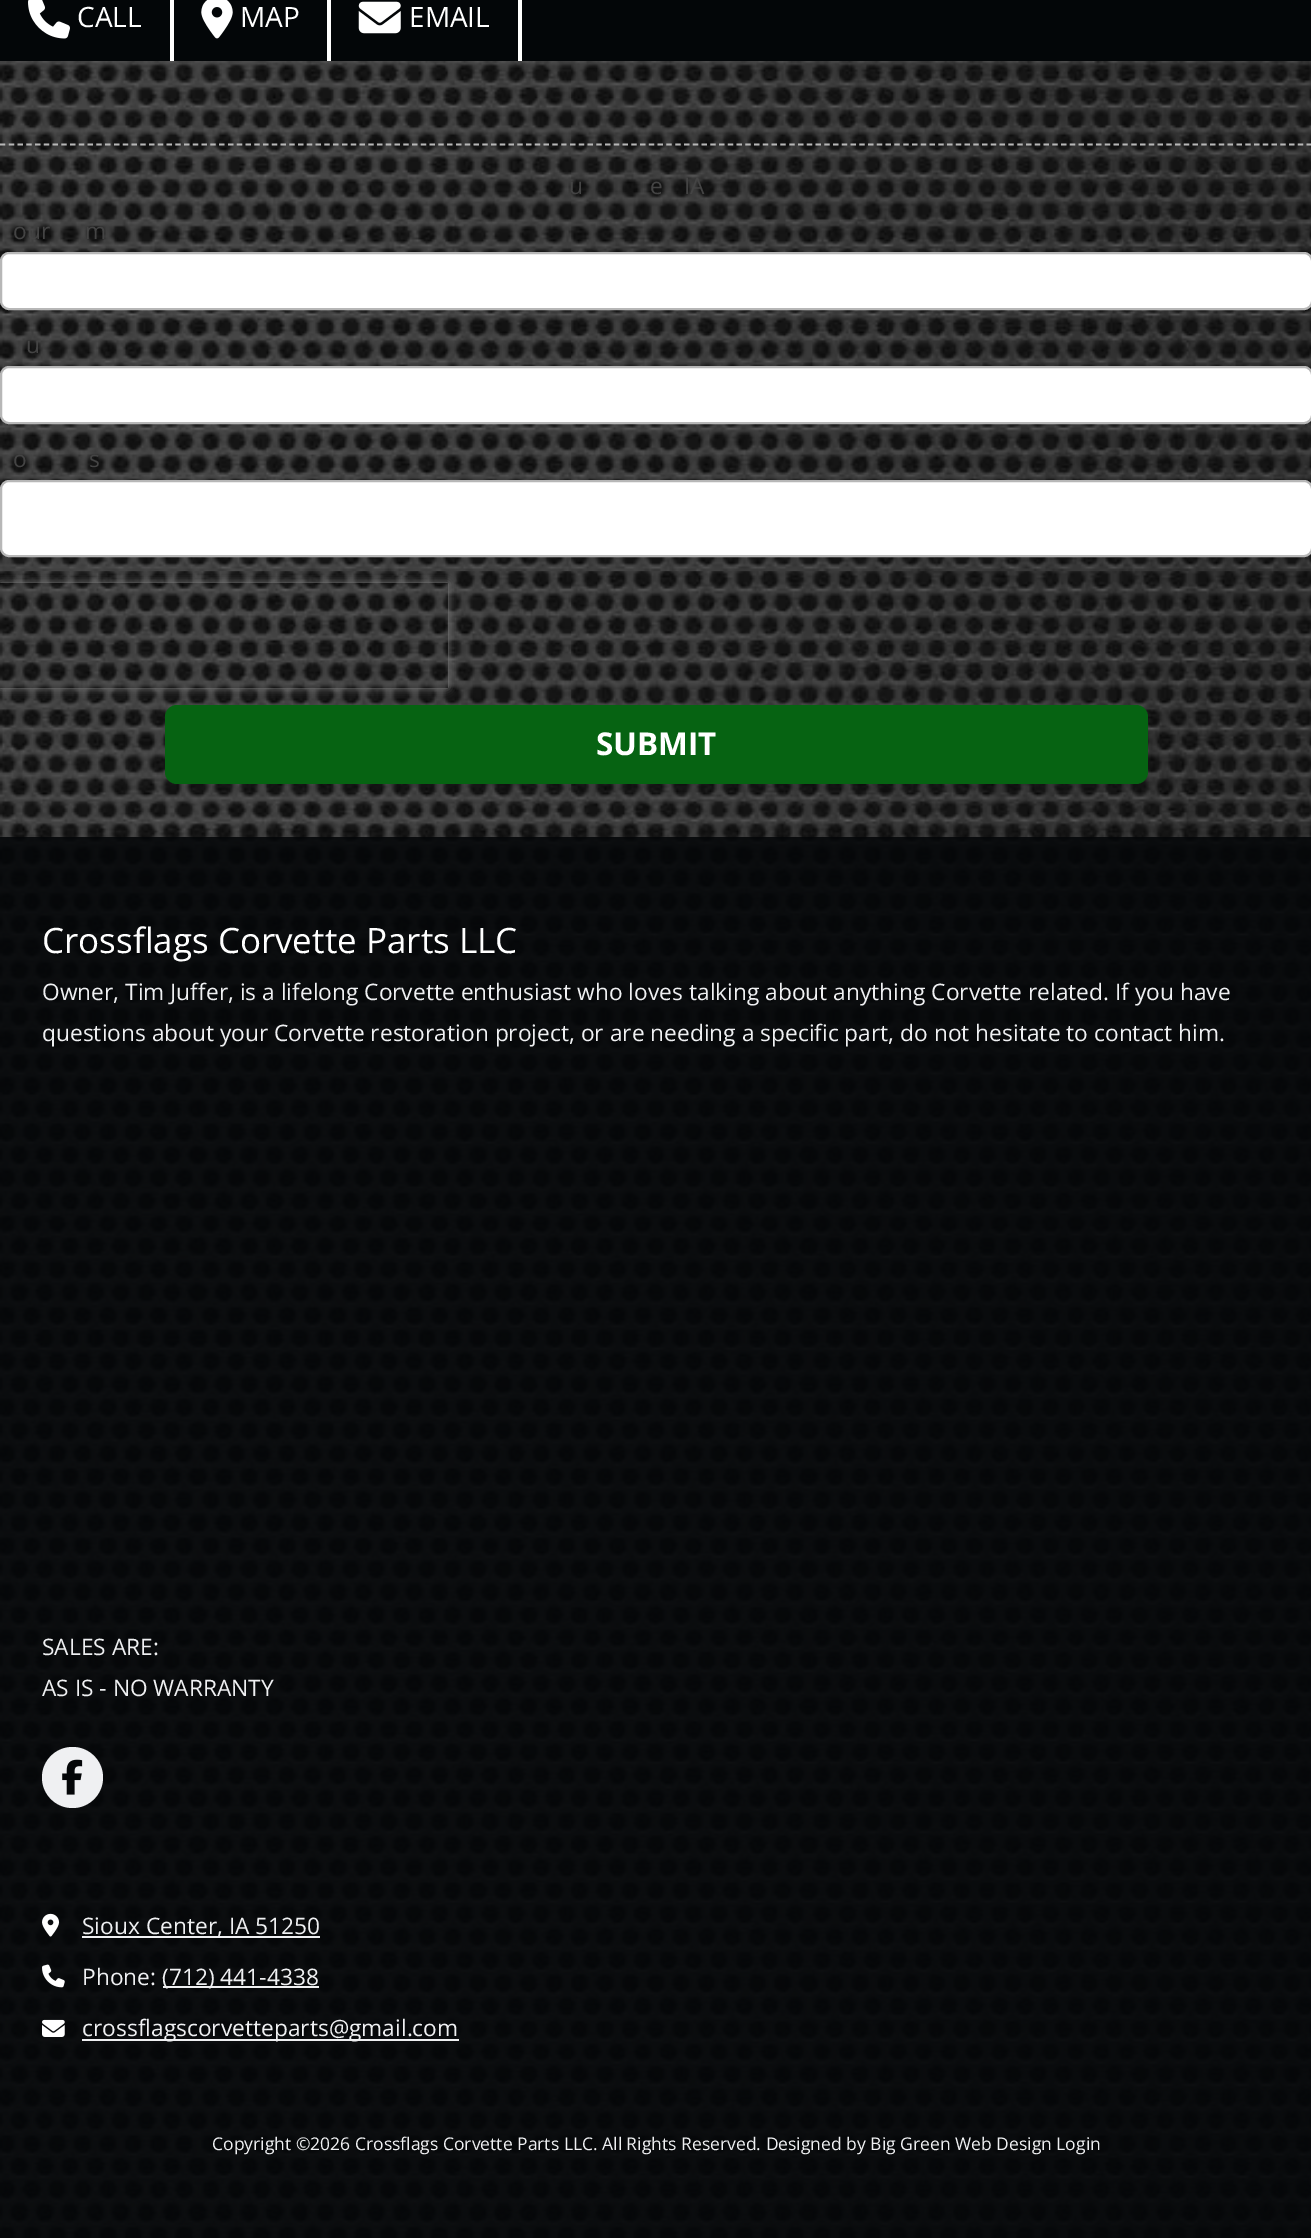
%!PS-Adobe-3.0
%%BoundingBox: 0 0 1311 2238
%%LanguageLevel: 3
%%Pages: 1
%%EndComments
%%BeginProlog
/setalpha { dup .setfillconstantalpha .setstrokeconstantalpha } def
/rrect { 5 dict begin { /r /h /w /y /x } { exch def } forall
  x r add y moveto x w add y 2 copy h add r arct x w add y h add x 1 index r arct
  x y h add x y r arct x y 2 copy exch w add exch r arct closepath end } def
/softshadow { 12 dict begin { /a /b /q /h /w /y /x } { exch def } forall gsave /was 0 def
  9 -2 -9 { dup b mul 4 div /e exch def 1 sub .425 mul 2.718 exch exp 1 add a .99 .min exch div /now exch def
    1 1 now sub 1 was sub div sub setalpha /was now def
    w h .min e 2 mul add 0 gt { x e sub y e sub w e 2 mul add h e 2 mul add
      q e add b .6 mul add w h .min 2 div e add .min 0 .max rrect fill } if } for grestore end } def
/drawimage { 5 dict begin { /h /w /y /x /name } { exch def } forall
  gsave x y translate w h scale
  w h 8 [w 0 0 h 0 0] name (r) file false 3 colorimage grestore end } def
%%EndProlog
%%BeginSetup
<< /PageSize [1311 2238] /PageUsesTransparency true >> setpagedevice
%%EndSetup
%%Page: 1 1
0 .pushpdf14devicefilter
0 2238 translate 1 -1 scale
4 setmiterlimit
1 setgray
0 0 1311 2238 rectfill
0.012 0.024 0.031 setrgbcolor
0 0 1311 61 rectfill
1 setgray
170 0 4 61 rectfill
(images/1.raw) 28 0 42 39 drawimage
327 0 4 61 rectfill
(images/2.raw) 201 0 32 39 drawimage
518 0 4 61 rectfill
(images/3.raw) 358 1 43 33 drawimage
(images/8.raw) 0 61 1311 2177 drawimage
0.718 setgray
1.8 setlinewidth
[5.25 3.52] 0 setdash
newpath 0 144.5 moveto 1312.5 144.5 lineto stroke
1 setgray
1 253 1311 56 8 rrect gsave fill grestore
0.718 setgray
2 setlinewidth
[] 0 setdash
stroke
1 setgray
1 367 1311 56 8 rrect gsave fill grestore
0.718 setgray
stroke
1 setgray
1 481 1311 75 8 rrect gsave fill grestore
0.718 setgray
stroke
gsave
newpath 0 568 moveto 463 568 lineto 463 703 lineto 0 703 lineto closepath 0 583 moveto 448 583 lineto 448 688 lineto 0 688 lineto closepath eoclip newpath
0.502 setgray
0 583 448 105 0 4.5 1 softshadow
grestore
0.024 0.388 0.071 setrgbcolor
165 705 983 79 12 rrect fill
0.89 setalpha
0.016 0.024 0.031 setrgbcolor
0 837 1311 1401 rectfill
1 setalpha
0.937 0.941 0.949 setrgbcolor
newpath 72.5 1777.5 30.5 0 360 arc closepath fill
(images/4.raw) 62 1759 21 36 drawimage
(images/5.raw) 42 1913 18 24 drawimage
82 1936 238 2 rectfill
(images/6.raw) 42 1964 23 24 drawimage
163 1986 156 2 rectfill
(images/7.raw) 42 2019 23 18 drawimage
82 2039 377 2 rectfill
/OpenSans-Regular [28 0 0 -28 0 0] selectfont
1 setgray
77 27 moveto (CALL) show
240 27 moveto (MAP) show
409 27 moveto (EMAIL) show
/OpenSans-Regular [22.75 0 0 -22.75 0 0] selectfont
0.267 setgray
569 194 moveto (u) show
650 194 moveto (e) show
684 194 moveto (IA) show
13 239 moveto (our) show
85 239 moveto (m) show
26 353 moveto (u) show
13 467 moveto (o) show
89 467 moveto (s) show
/OpenSans-Bold [31.5 0 0 -31.5 0 0] selectfont
1 setgray
596 755 moveto (SUBMIT) show
/OpenSans-Regular [35 0 0 -35 0 0] selectfont
42 953 moveto (Crossflags Corvette Parts LLC) show
/OpenSans-Regular [22.75 0 0 -22.75 0 0] selectfont
0.937 0.941 0.949 setrgbcolor
42 1000 moveto (Owner, Tim Juffer, is a lifelong Corvette enthusiast who loves talking about anything Corvette related. If you have) show
42 1041 moveto (questions about your Corvette restoration project, or are needing a specific part, do not hesitate to contact him.) show
42 1655 moveto (SALES ARE:) show
42 1696 moveto (AS IS - NO WARRANTY) show
82 1934 moveto (Sioux Center, IA 51250) show
82 1985 moveto (Phone:) show
162 1985 moveto (\(712\) 441-4338) show
82 2036 moveto (crossflagscorvetteparts@gmail.com) show
/OpenSans-Regular [17.52 0 0 -17.52 0 0] selectfont
212 2150 moveto (Copyright ©2026 Crossflags Corvette Parts LLC. All Rights Reserved. Designed by Big Green Web Design Login) show
.poppdf14devicefilter showpage
%%EOF
